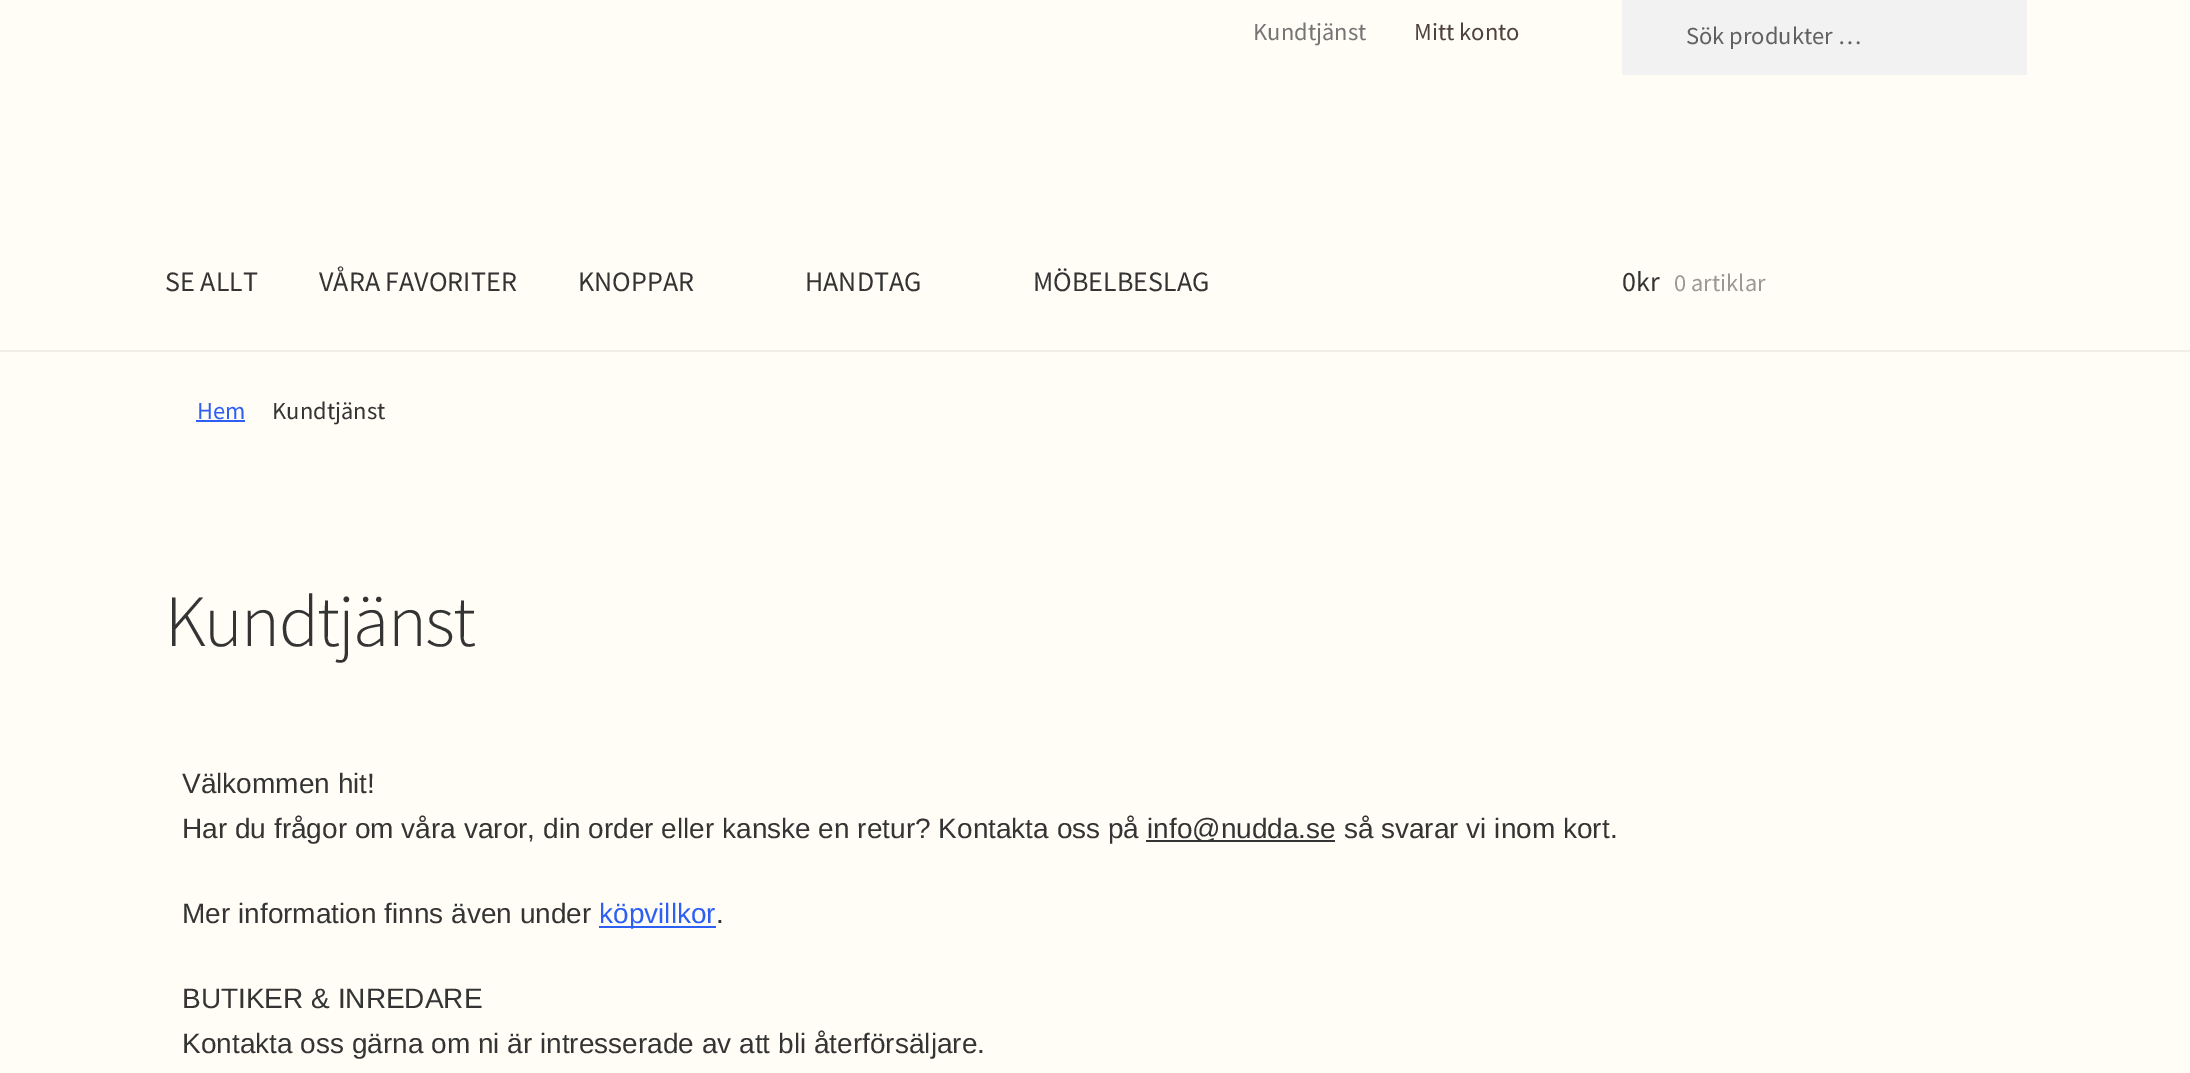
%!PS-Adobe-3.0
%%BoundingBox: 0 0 2190 1073
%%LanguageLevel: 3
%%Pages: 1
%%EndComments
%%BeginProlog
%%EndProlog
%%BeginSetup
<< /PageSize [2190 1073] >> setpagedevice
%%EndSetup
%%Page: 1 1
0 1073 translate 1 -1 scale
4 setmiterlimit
1 0.992 0.965 setrgbcolor
0 0 2190 1073 rectfill
0.941 0.933 0.906 setrgbcolor
0 350 2190 2 rectfill
0.949 setgray
1622 0 405 75 rectfill
0.176 0.373 0.957 setrgbcolor
196 420 49 2 rectfill
0.204 setgray
1146 840 189 2 rectfill
0.176 0.373 0.957 setrgbcolor
599 926 117 2 rectfill
/SourceSansPro-Regular [24.5 0 0 -24.5 0 0] selectfont
0.459 setgray
1253 40 moveto (Kundtjänst) show
0.306 0.259 0.227 setrgbcolor
1414 40 moveto (Mitt konto) show
0.38 setgray
1686 44 moveto (Sök produkter …) show
/SourceSansPro-Regular [28 0 0 -28 0 0] selectfont
0.204 setgray
165 291 moveto (SE ALLT) show
319 291 moveto (VÅRA FAVORITER) show
578 291 moveto (KNOPPAR) show
805 291 moveto (HANDTAG) show
1033 291 moveto (MÖBELBESLAG) show
1622 291 moveto (0kr) show
/SourceSansPro-Regular [24.5 0 0 -24.5 0 0] selectfont
0.604 0.6 0.584 setrgbcolor
1674 291 moveto (0 artiklar) show
0.176 0.373 0.957 setrgbcolor
197 419 moveto (Hem) show
0.204 setgray
272 419 moveto (Kundtjänst) show
/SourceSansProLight-Light [73.5 0 0 -73.5 0 0] selectfont
165 646 moveto -1.75 0 (Kundtjänst) ashow
/LiberationSans-Regular [28 0 0 -28 0 0] selectfont
182 793 moveto (Välkommen hit!) show
182 838 moveto (Har du frågor om våra varor, din order eller kanske en retur? Kontakta oss på) show
1147 838 moveto (info@nudda.se så svarar vi inom kort.) show
182 923 moveto (Mer information finns även under) show
0.176 0.373 0.957 setrgbcolor
599 923 moveto (köpvillkor) show
0.204 setgray
716 923 moveto (.) show
182 1008 moveto (BUTIKER & INREDARE) show
182 1053 moveto (Kontakta oss gärna om ni är intresserade av att bli återförsäljare.) show
showpage
%%EOF
